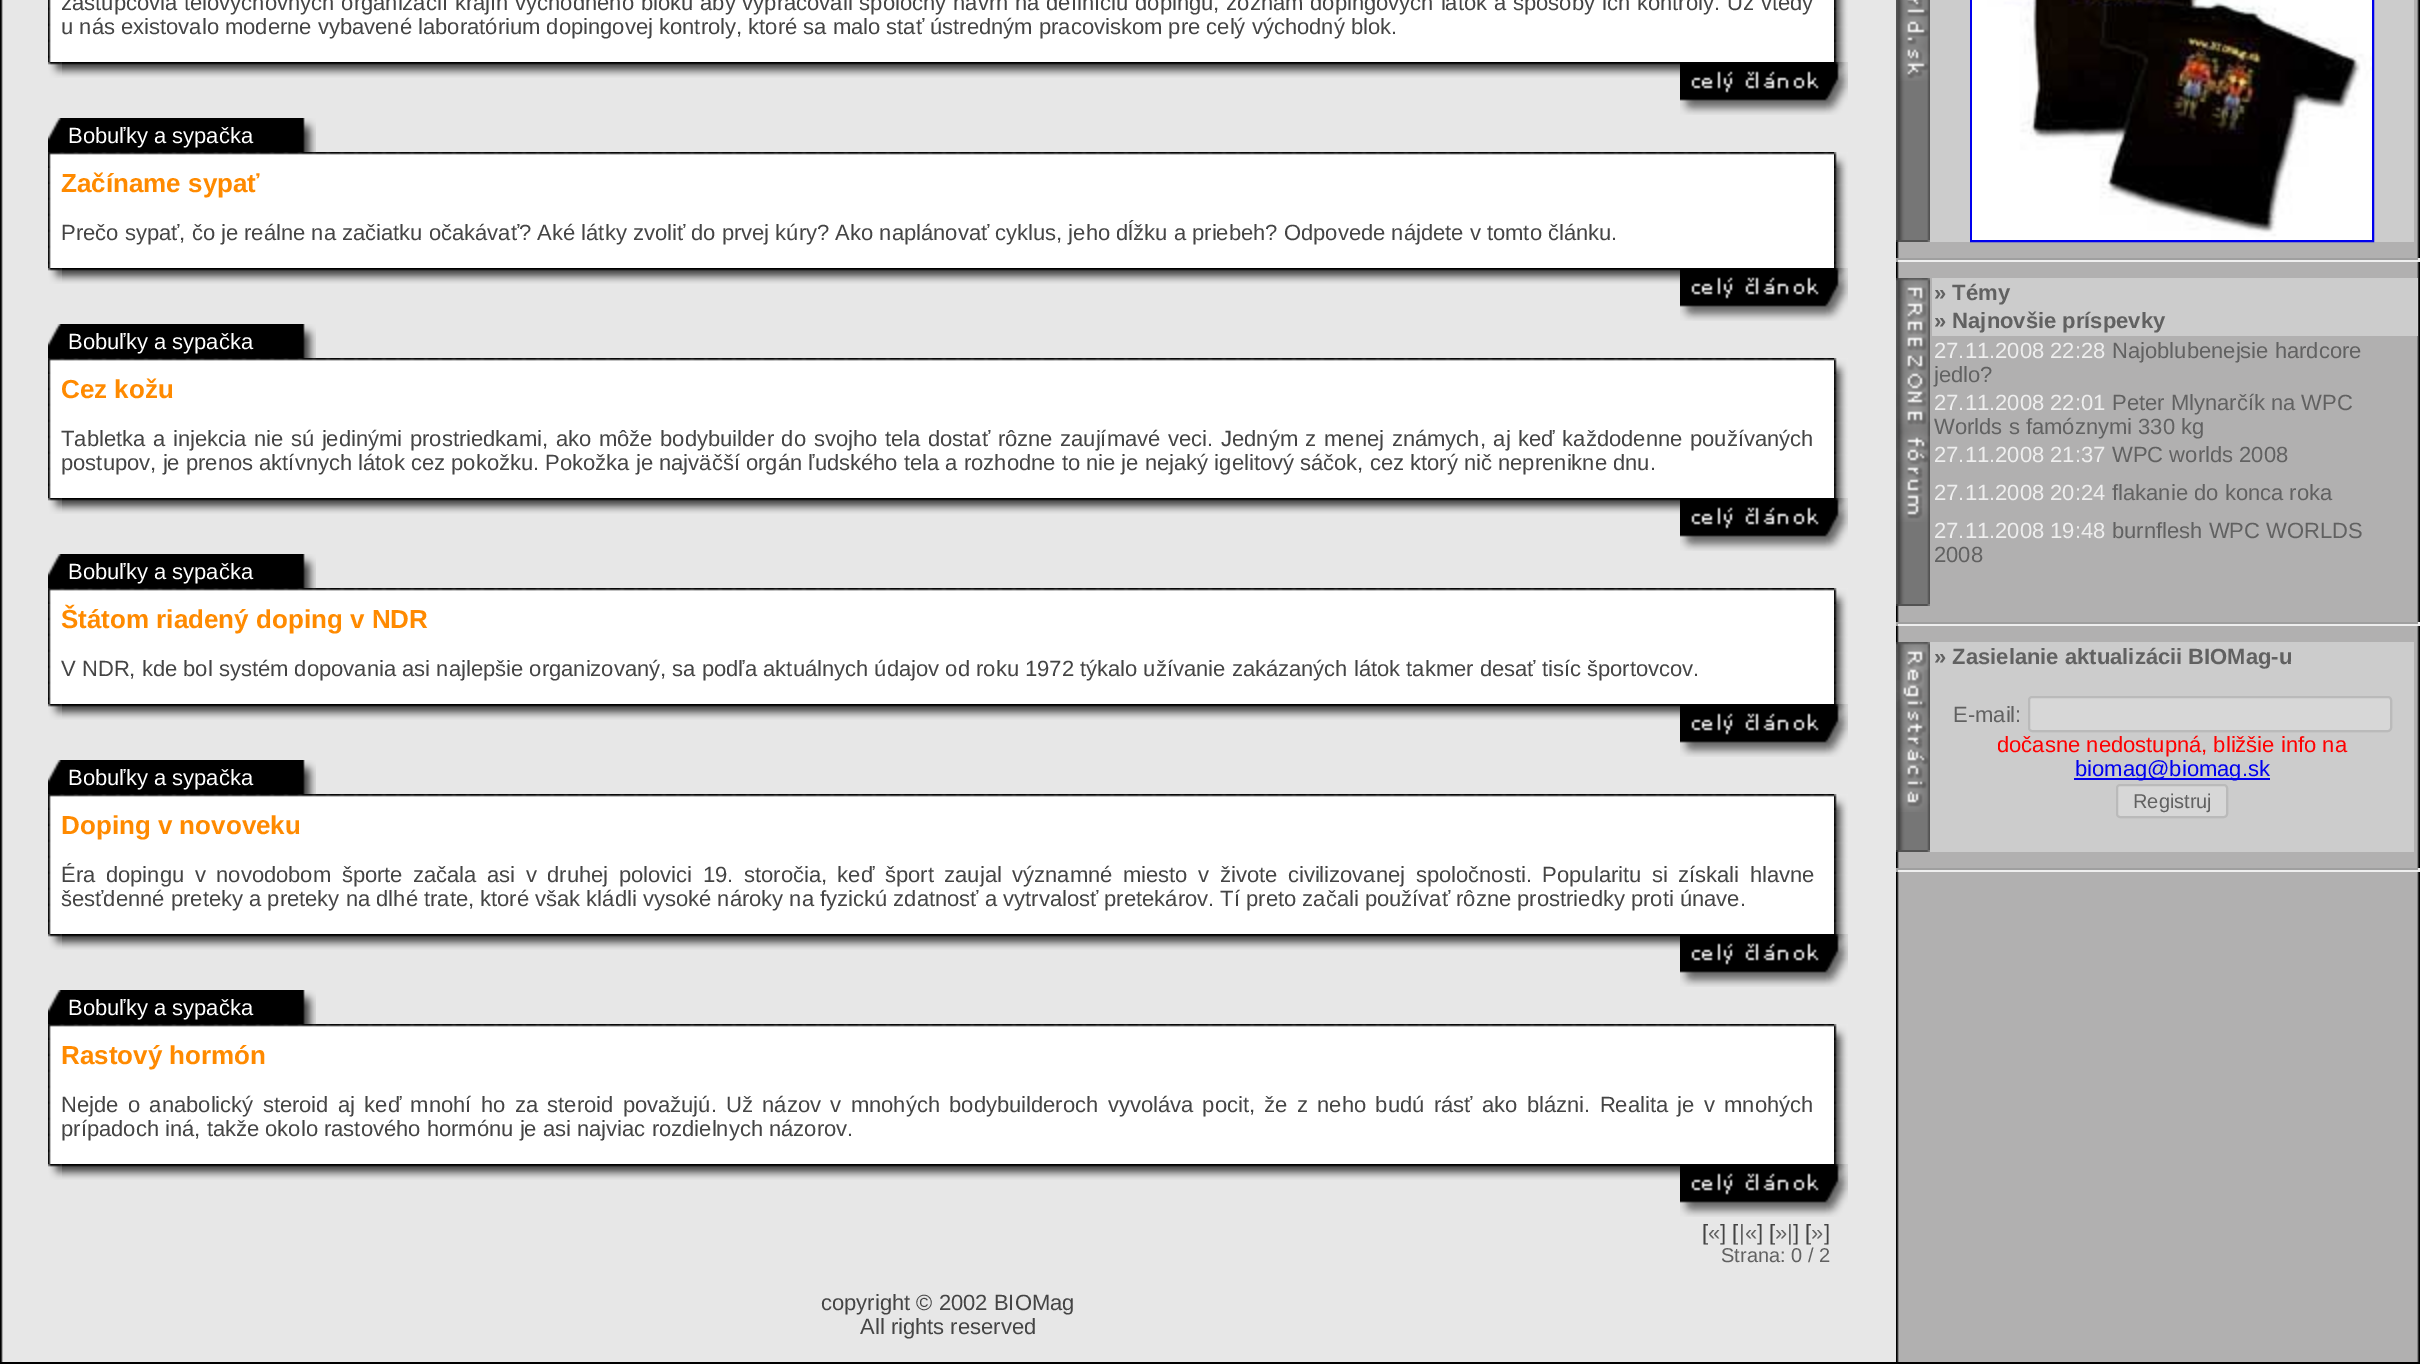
%!PS-Adobe-3.0
%%BoundingBox: 0 0 2420 1364
%%LanguageLevel: 3
%%Pages: 1
%%EndComments
%%BeginProlog
/setalpha { dup .setfillconstantalpha .setstrokeconstantalpha } def
/rrect { 5 dict begin { /r /h /w /y /x } { exch def } forall
  x r add y moveto x w add y 2 copy h add r arct x w add y h add x 1 index r arct
  x y h add x y r arct x y 2 copy exch w add exch r arct closepath end } def
/drawimage { 5 dict begin { /h /w /y /x /name } { exch def } forall
  gsave x y translate w h scale
  w h 8 [w 0 0 h 0 0] name (r) file false 3 colorimage grestore end } def
%%EndProlog
%%BeginSetup
<< /PageSize [2420 1364] /PageUsesTransparency true >> setpagedevice
%%EndSetup
%%Page: 1 1
0 .pushpdf14devicefilter
0 1364 translate 1 -1 scale
4 setmiterlimit
1 setgray
0 0 2420 1364 rectfill
(images/1.raw) 0 0 1896 1362 drawimage
(images/2.raw) 48 0 14 62 drawimage
62 0 1772 62 rectfill
(images/3.raw) 1834 0 14 62 drawimage
(images/4.raw) 48 62 14 16 drawimage
(images/5.raw) 62 62 1618 16 drawimage
(images/6.raw) 1680 62 168 53 drawimage
(images/7.raw) 48 118 14 34 drawimage
0 setgray
62 118 240 34 rectfill
(images/8.raw) 302 118 14 34 drawimage
(images/9.raw) 48 152 14 16 drawimage
(images/10.raw) 62 152 1772 16 drawimage
(images/11.raw) 1834 152 14 16 drawimage
(images/12.raw) 48 168 14 100 drawimage
(images/13.raw) 48 168 2 16 drawimage
1 setgray
62 168 1772 100 rectfill
(images/14.raw) 1834 168 14 100 drawimage
(images/4.raw) 48 268 14 16 drawimage
(images/5.raw) 62 268 1618 16 drawimage
(images/6.raw) 1680 268 168 53 drawimage
(images/7.raw) 48 324 14 34 drawimage
0 setgray
62 324 240 34 rectfill
(images/8.raw) 302 324 14 34 drawimage
(images/9.raw) 48 358 14 16 drawimage
(images/10.raw) 62 358 1772 16 drawimage
(images/11.raw) 1834 358 14 16 drawimage
(images/15.raw) 48 374 14 124 drawimage
(images/13.raw) 48 374 2 16 drawimage
1 setgray
62 374 1772 124 rectfill
(images/16.raw) 1834 374 14 124 drawimage
(images/4.raw) 48 498 14 16 drawimage
(images/5.raw) 62 498 1618 16 drawimage
(images/6.raw) 1680 498 168 53 drawimage
(images/7.raw) 48 554 14 34 drawimage
0 setgray
62 554 240 34 rectfill
(images/8.raw) 302 554 14 34 drawimage
(images/9.raw) 48 588 14 16 drawimage
(images/10.raw) 62 588 1772 16 drawimage
(images/11.raw) 1834 588 14 16 drawimage
(images/12.raw) 48 604 14 100 drawimage
(images/13.raw) 48 604 2 16 drawimage
1 setgray
62 604 1772 100 rectfill
(images/14.raw) 1834 604 14 100 drawimage
(images/4.raw) 48 704 14 16 drawimage
(images/5.raw) 62 704 1618 16 drawimage
(images/6.raw) 1680 704 168 53 drawimage
(images/7.raw) 48 760 14 34 drawimage
0 setgray
62 760 240 34 rectfill
(images/8.raw) 302 760 14 34 drawimage
(images/9.raw) 48 794 14 16 drawimage
(images/10.raw) 62 794 1772 16 drawimage
(images/11.raw) 1834 794 14 16 drawimage
(images/15.raw) 48 810 14 124 drawimage
(images/13.raw) 48 810 2 16 drawimage
1 setgray
62 810 1772 124 rectfill
(images/16.raw) 1834 810 14 124 drawimage
(images/4.raw) 48 934 14 16 drawimage
(images/5.raw) 62 934 1618 16 drawimage
(images/6.raw) 1680 934 168 53 drawimage
(images/7.raw) 48 990 14 34 drawimage
0 setgray
62 990 240 34 rectfill
(images/8.raw) 302 990 14 34 drawimage
(images/9.raw) 48 1024 14 16 drawimage
(images/10.raw) 62 1024 1772 16 drawimage
(images/11.raw) 1834 1024 14 16 drawimage
(images/15.raw) 48 1040 14 124 drawimage
(images/13.raw) 48 1040 2 16 drawimage
1 setgray
62 1040 1772 124 rectfill
(images/16.raw) 1834 1040 14 124 drawimage
(images/4.raw) 48 1164 14 16 drawimage
(images/5.raw) 62 1164 1618 16 drawimage
(images/6.raw) 1680 1164 168 53 drawimage
(images/17.raw) 1896 0 524 1362 drawimage
(images/18.raw) 1896 0 34 238 drawimage
(images/19.raw) 1898 0 32 81 drawimage
0.8 setgray
1930 0 484 242 rectfill
0 0 0.933 setrgbcolor
2 setlinewidth
1971 -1 402 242 rectstroke
(images/20.raw) 1972 0 400 240 drawimage
(images/21.raw) 1896 238 34 2 drawimage
(images/22.raw) 1896 240 34 2 drawimage
0.624 setgray
1896 258 524 2 rectfill
0.933 setgray
2418 258 2 4 rectfill
1896 260 524 2 rectfill
0.624 setgray
1896 258 2 4 rectfill
(images/23.raw) 1896 522 34 82 drawimage
(images/24.raw) 1896 278 34 244 drawimage
0.8 setgray
1932 278 486 58 rectfill
(images/22.raw) 1896 604 34 2 drawimage
0.624 setgray
1896 622 524 2 rectfill
0.933 setgray
2418 622 2 4 rectfill
1896 624 524 2 rectfill
0.624 setgray
1896 622 2 4 rectfill
(images/25.raw) 1896 812 34 38 drawimage
(images/26.raw) 1896 642 34 170 drawimage
0.8 setgray
1930 642 484 210 rectfill
0.843 setgray
2028 696 364 36 4 rrect fill
0.3 setalpha
0.463 setgray
2029 697 362 34 3 rrect stroke
1 setalpha
0 0 0.933 setrgbcolor
2074 778 196 2 rectfill
0.843 setgray
2116 784 112 34 4 rrect fill
0.3 setalpha
0.463 setgray
2117 785 110 32 3 rrect stroke
1 setalpha
(images/22.raw) 1896 850 34 2 drawimage
0.624 setgray
1896 868 524 2 rectfill
0.933 setgray
2418 868 2 4 rectfill
1896 870 524 2 rectfill
0.624 setgray
1896 868 2 4 rectfill
0 setgray
0 1362 2420 2 rectfill
/LiberationSans-Regular [22 0 0 -22 0 0] selectfont
0.267 setgray
61 10 moveto 0.75 0 32 (zástupcovia telovýchovných organizácií krajín východného bloku aby vypracovali spoločný návrh na definíciu dopingu, zoznam dopingových látok a spôsoby ich kontroly. Už vtedy) widthshow
61 34 moveto (u nás existovalo moderne vybavené laboratórium dopingovej kontroly, ktoré sa malo stať ústredným pracoviskom pre celý východný blok.) show
1 setgray
68 143 moveto (Bobuľky a sypačka) show
/LiberationSans-Bold [26 0 0 -26 0 0] selectfont
1 0.541 0 setrgbcolor
61 192 moveto (Začíname sypať) show
/LiberationSans-Regular [22 0 0 -22 0 0] selectfont
0.267 setgray
61 240 moveto (Prečo sypať, čo je reálne na začiatku očakávať? Aké látky zvoliť do prvej kúry? Ako naplánovať cyklus, jeho dĺžku a priebeh? Odpovede nájdete v tomto článku.) show
1 setgray
68 349 moveto (Bobuľky a sypačka) show
/LiberationSans-Bold [26 0 0 -26 0 0] selectfont
1 0.541 0 setrgbcolor
61 398 moveto (Cez kožu) show
/LiberationSans-Regular [22 0 0 -22 0 0] selectfont
0.267 setgray
61 446 moveto 1.5 0 32 (Tabletka a injekcia nie sú jedinými prostriedkami, ako môže bodybuilder do svojho tela dostať rôzne zaujímavé veci. Jedným z menej známych, aj keď každodenne používaných) widthshow
61 470 moveto (postupov, je prenos aktívnych látok cez pokožku. Pokožka je najväčší orgán ľudského tela a rozhodne to nie je nejaký igelitový sáčok, cez ktorý nič neprenikne dnu.) show
1 setgray
68 579 moveto (Bobuľky a sypačka) show
/LiberationSans-Bold [26 0 0 -26 0 0] selectfont
1 0.541 0 setrgbcolor
61 628 moveto (Štátom riadený doping v NDR) show
/LiberationSans-Regular [22 0 0 -22 0 0] selectfont
0.267 setgray
61 676 moveto (V NDR, kde bol systém dopovania asi najlepšie organizovaný, sa podľa aktuálnych údajov od roku 1972 týkalo užívanie zakázaných látok takmer desať tisíc športovcov.) show
1 setgray
68 785 moveto (Bobuľky a sypačka) show
/LiberationSans-Bold [26 0 0 -26 0 0] selectfont
1 0.541 0 setrgbcolor
61 834 moveto (Doping v novoveku) show
/LiberationSans-Regular [22 0 0 -22 0 0] selectfont
0.267 setgray
61 882 moveto 4.4 0 32 (Éra dopingu v novodobom športe) widthshow
413 882 moveto 4.4 0 32 (začala asi v druhej polovici 19. storočia, keď šport zaujal významné miesto v živote civilizovanej spoločnosti. Popularitu si) widthshow
1678 882 moveto 4.4 0 32 (získali hlavne) widthshow
61 906 moveto (šesťdenné preteky a preteky na dlhé trate, ktoré však kládli vysoké nároky na fyzickú zdatnosť a vytrvalosť pretekárov. Tí preto začali používať rôzne prostriedky proti únave.) show
1 setgray
68 1015 moveto (Bobuľky a sypačka) show
/LiberationSans-Bold [26 0 0 -26 0 0] selectfont
1 0.541 0 setrgbcolor
61 1064 moveto (Rastový hormón) show
/LiberationSans-Regular [22 0 0 -22 0 0] selectfont
0.267 setgray
61 1112 moveto 3.2 0 32 (Nejde o anabolický steroid aj keď mnohí ho za steroid považujú. Už názov v mnohých bodybuilderoch vyvoláva pocit, že z neho budú rásť ako blázni. Realita je v mnohých) widthshow
61 1136 moveto (prípadoch iná, takže okolo rastového hormónu je asi najviac rozdielnych názorov.) show
1702 1240 moveto ([) show
0.38 setgray
1708 1240 moveto («) show
0.267 setgray
1720 1240 moveto (] [) show
0.38 setgray
1739 1240 moveto (|«) show
0.267 setgray
1757 1240 moveto (] [) show
0.38 setgray
1775 1240 moveto (»|) show
0.267 setgray
1793 1240 moveto (] [) show
0.38 setgray
1811 1240 moveto (») show
0.267 setgray
1824 1240 moveto (]) show
/LiberationSans-Regular [20 0 0 -20 0 0] selectfont
0.38 setgray
1721 1262 moveto (Strana: 0 / 2) show
/LiberationSans-Regular [22 0 0 -22 0 0] selectfont
0.267 setgray
821 1310 moveto (copyright © 2002 BIOMag) show
860 1334 moveto (All rights reserved) show
/LiberationSans-Bold [22 0 0 -22 0 0] selectfont
0.38 setgray
1934 300 moveto (» Témy) show
1934 328 moveto (» Najnovšie príspevky) show
/LiberationSans-Regular [22 0 0 -22 0 0] selectfont
0.933 setgray
1934 358 moveto (27.11.2008 22:28) show
0.38 setgray
2112 358 moveto (Najoblubenejsie hardcore) show
1934 382 moveto (jedlo?) show
0.933 setgray
1934 410 moveto (27.11.2008 22:01) show
0.38 setgray
2112 410 moveto (Peter Mlynarčík na WPC) show
1934 434 moveto (Worlds s famóznymi 330 kg) show
0.933 setgray
1934 462 moveto (27.11.2008 21:37) show
0.38 setgray
2112 462 moveto (WPC worlds 2008) show
0.933 setgray
1934 500 moveto (27.11.2008 20:24) show
0.38 setgray
2112 500 moveto (flakanie do konca roka) show
0.933 setgray
1934 538 moveto (27.11.2008 19:48) show
0.38 setgray
2112 538 moveto (burnflesh WPC WORLDS) show
1934 562 moveto (2008) show
/LiberationSans-Bold [22 0 0 -22 0 0] selectfont
1934 664 moveto (» Zasielanie aktualizácii BIOMag-u) show
/LiberationSans-Regular [22 0 0 -22 0 0] selectfont
1953 722 moveto (E-mail:) show
1 0 0 setrgbcolor
1997 752 moveto (dočasne nedostupná, bližšie info na) show
0 0 0.933 setrgbcolor
2075 776 moveto (biomag@biomag.sk) show
/LiberationSans-Regular [20 0 0 -20 0 0] selectfont
0.38 setgray
2133 808 moveto (Registruj) show
.poppdf14devicefilter showpage
%%EOF
